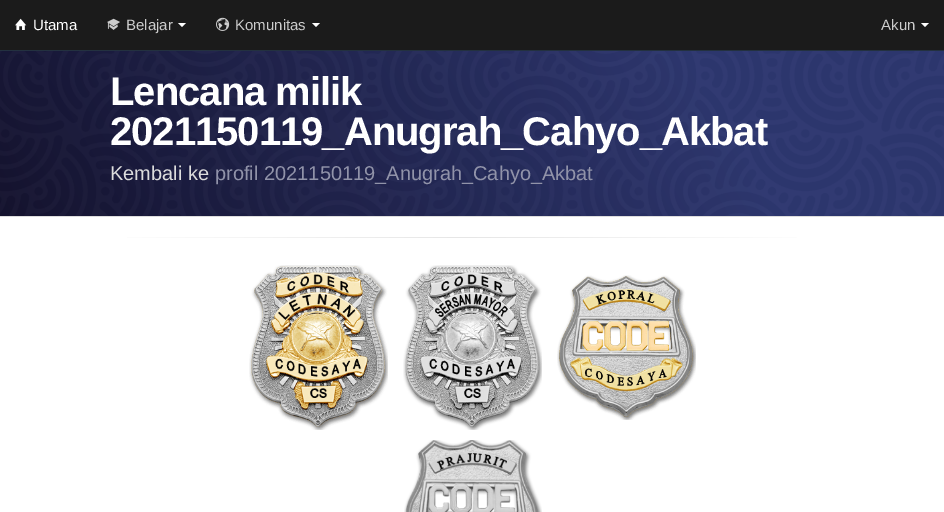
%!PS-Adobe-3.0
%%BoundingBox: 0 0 944 512
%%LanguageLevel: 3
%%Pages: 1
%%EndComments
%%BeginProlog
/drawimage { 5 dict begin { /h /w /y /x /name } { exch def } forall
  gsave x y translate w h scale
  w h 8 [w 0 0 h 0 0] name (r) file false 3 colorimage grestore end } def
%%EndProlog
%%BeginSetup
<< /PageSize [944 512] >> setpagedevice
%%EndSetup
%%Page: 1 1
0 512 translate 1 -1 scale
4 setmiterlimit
1 setgray
0 0 944 512 rectfill
0.106 setgray
0 0 944 50 rectfill
0.137 0.192 0.251 setrgbcolor
0 50 944 1 rectfill
(images/1.raw) 15 18 12 12 drawimage
(images/2.raw) 107 18 13 12 drawimage
1 setgray
newpath 178 23 moveto 186 23 lineto 182 27 lineto closepath fill
(images/3.raw) 216 17 14 14 drawimage
newpath 312 23 moveto 320 23 lineto 316 27 lineto closepath fill
newpath 921 23 moveto 929 23 lineto 925 27 lineto closepath fill
gsave newpath 0 51 moveto 944 51 lineto 944 216 lineto 0 216 lineto closepath clip newpath
<< /ShadingType 2 /ColorSpace /DeviceRGB /Coords [82 359 862 -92] /Extend [true true] /Function << /FunctionType 3 /Domain [0 1] /Functions [<< /FunctionType 2 /Domain [0 1] /C0 [0.008 0 0.118] /C1 [0.114 0.153 0.392] /N 1 >> << /FunctionType 2 /Domain [0 1] /C0 [0.114 0.153 0.392] /C1 [0.114 0.153 0.392] /N 1 >>] /Bounds [0.75] /Encode [0 1 0 1] >> >> shfill grestore
0.867 setgray
0 216 944 1 rectfill
(images/4.raw) 0 51 944 165 drawimage
gsave newpath 127 237 moveto 797 237 lineto 797 238 lineto 127 238 lineto closepath clip newpath
<< /ShadingType 2 /ColorSpace /DeviceRGB /Coords [90 238 834 237] /Extend [true true] /Function << /FunctionType 3 /Domain [0 1] /Functions [<< /FunctionType 2 /Domain [0 1] /C0 [1 1 1] /C1 [0.902 0.902 0.902] /N 1 >> << /FunctionType 2 /Domain [0 1] /C0 [0.902 0.902 0.902] /C1 [1 1 1] /N 1 >>] /Bounds [0.5] /Encode [0 1 0 1] >> >> shfill grestore
(images/5.raw) 249 265 139 165 drawimage
(images/6.raw) 403 265 139 165 drawimage
(images/7.raw) 557 275 139 145 drawimage
(images/8.raw) 404 440 138 72 drawimage
/LiberationSans-Regular [15 0 0 -15 0 0] selectfont
1 setgray
33 30 moveto (Utama) show
0.8 setgray
126 30 moveto (Belajar) show
235 30 moveto (Komunitas) show
881 30 moveto (Akun) show
/LiberationSans-Bold [40 0 0 -40 0 0] selectfont
1 setgray
110 105 moveto -1 0 (Lencana milik) ashow
110 145 moveto -1 0 (2021150119_Anugrah_Cahyo_Akbat) ashow
/LiberationSans-Regular [20 0 0 -20 0 0] selectfont
0.867 setgray
110 180 moveto (Kembali ke) show
0.569 0.576 0.663 setrgbcolor
215 180 moveto (profil 2021150119_Anugrah_Cahyo_Akbat) show
showpage
%%EOF
